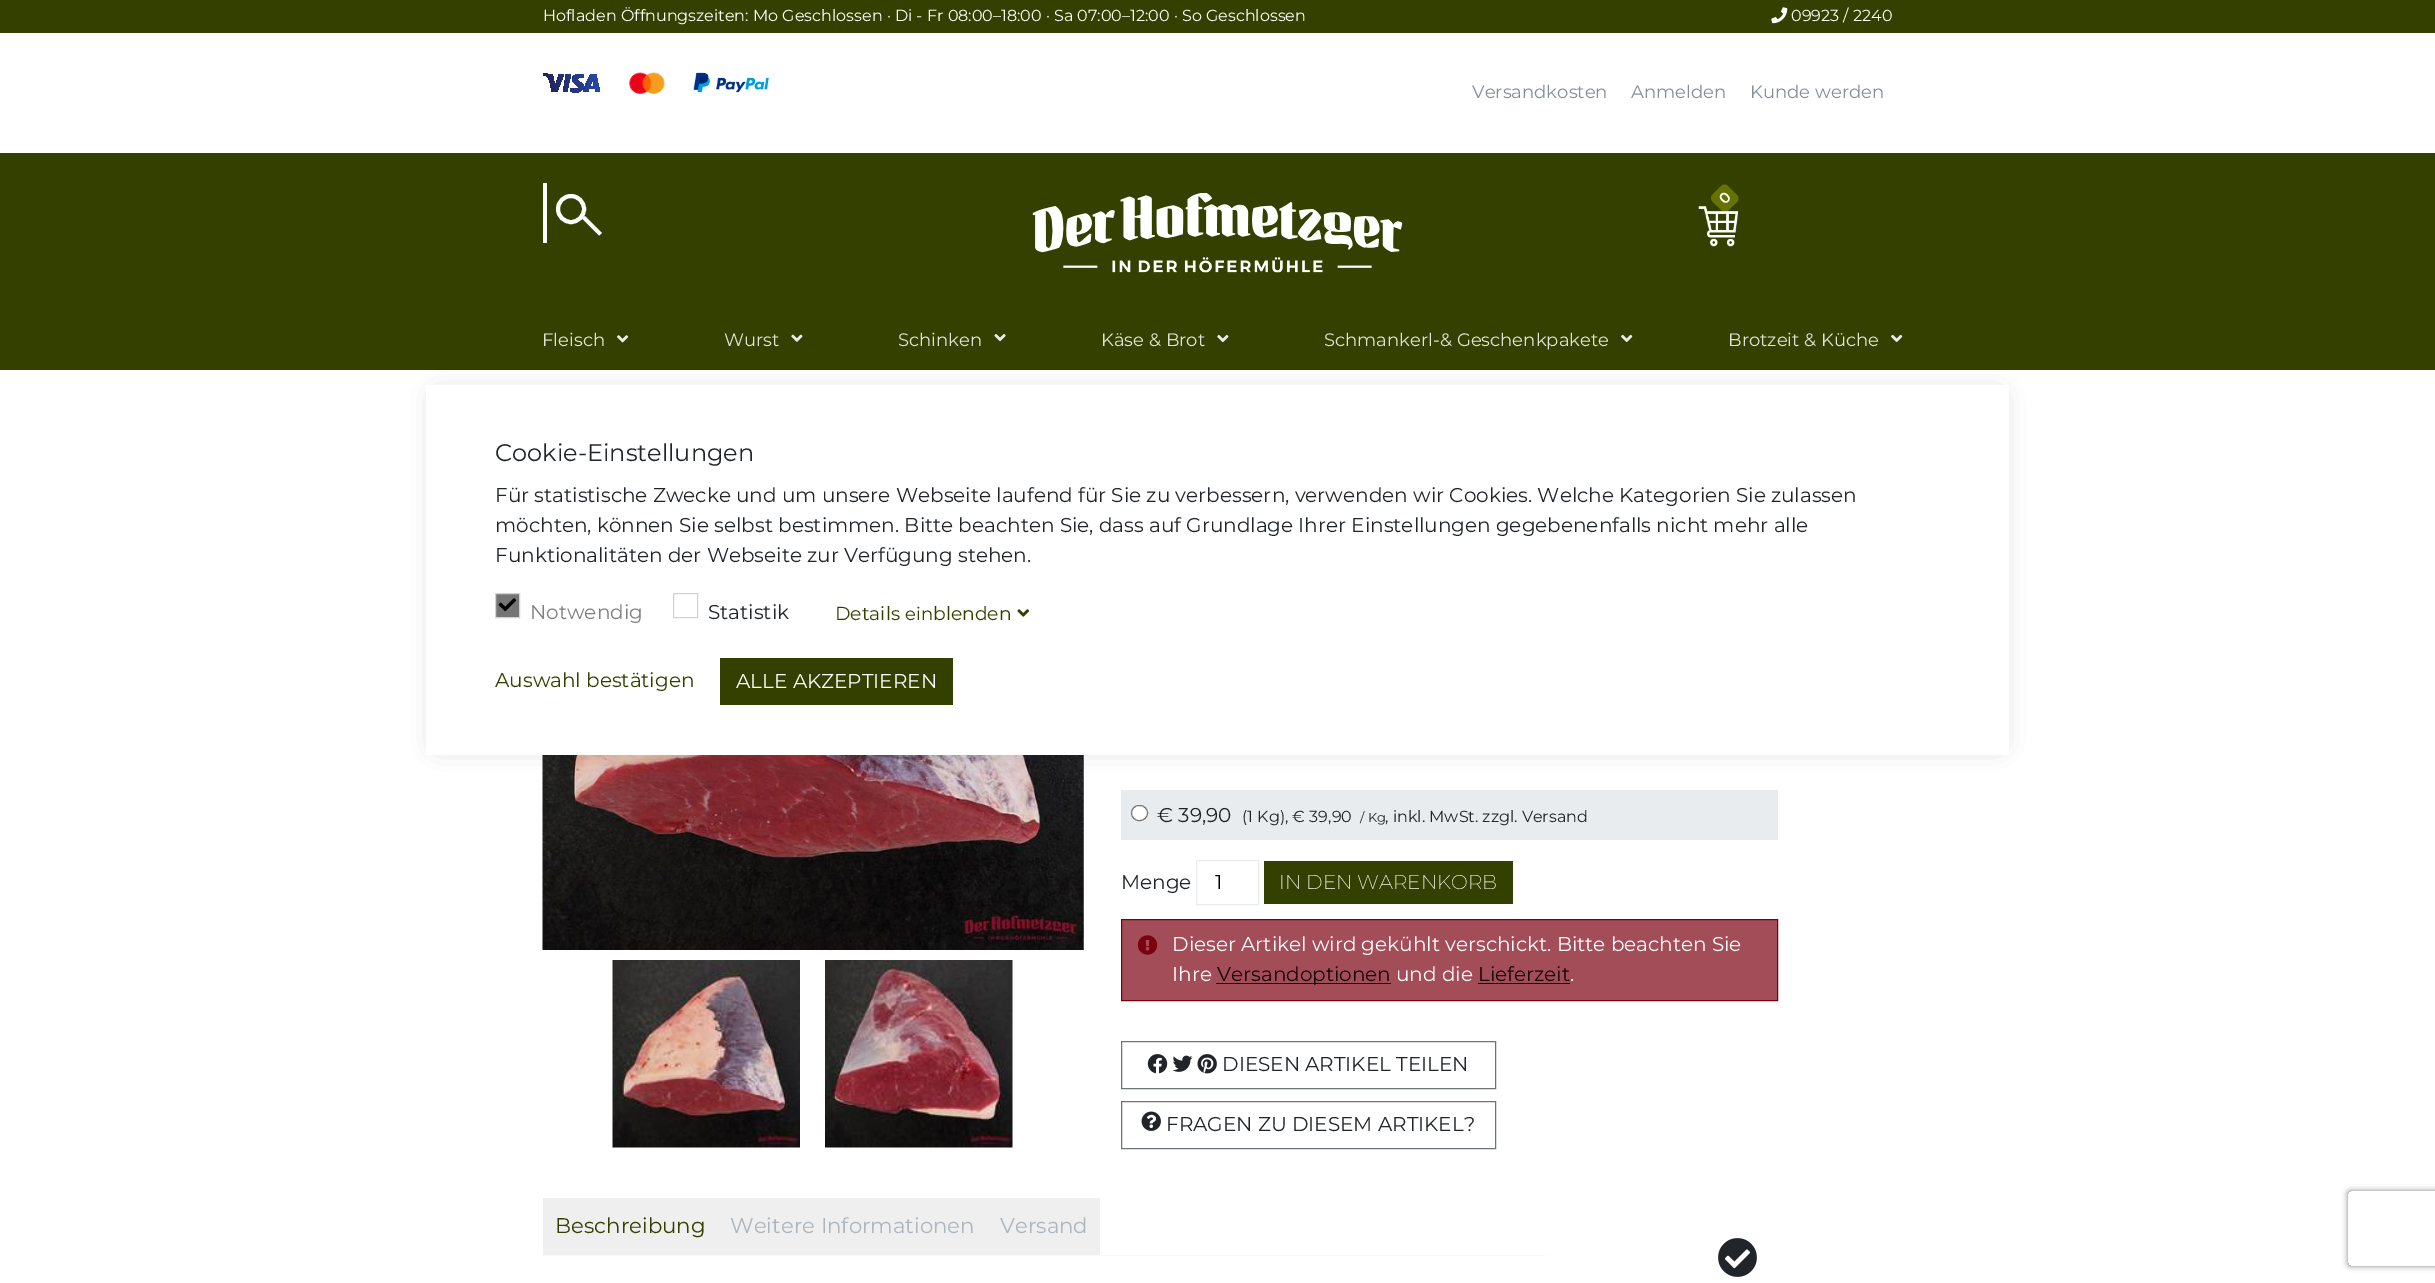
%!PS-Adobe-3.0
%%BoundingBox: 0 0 2435 1283
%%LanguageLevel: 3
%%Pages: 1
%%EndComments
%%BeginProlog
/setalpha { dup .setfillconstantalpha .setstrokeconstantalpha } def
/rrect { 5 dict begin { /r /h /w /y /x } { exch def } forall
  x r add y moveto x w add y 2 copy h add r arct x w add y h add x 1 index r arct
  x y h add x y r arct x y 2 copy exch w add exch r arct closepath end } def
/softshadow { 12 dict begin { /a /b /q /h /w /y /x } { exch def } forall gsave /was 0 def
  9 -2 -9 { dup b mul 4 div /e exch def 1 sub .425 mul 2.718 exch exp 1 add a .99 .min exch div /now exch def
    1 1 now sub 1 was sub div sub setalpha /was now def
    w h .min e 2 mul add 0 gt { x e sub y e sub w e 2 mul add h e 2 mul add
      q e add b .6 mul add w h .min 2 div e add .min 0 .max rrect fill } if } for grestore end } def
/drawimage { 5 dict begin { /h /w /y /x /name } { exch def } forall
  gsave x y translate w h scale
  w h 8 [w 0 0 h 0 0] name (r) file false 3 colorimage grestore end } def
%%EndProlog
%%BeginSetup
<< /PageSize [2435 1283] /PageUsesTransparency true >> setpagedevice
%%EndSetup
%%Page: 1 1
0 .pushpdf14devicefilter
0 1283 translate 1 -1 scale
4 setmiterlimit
1 setgray
0 0 2435 1283 rectfill
0.2 0.251 0 setrgbcolor
0 153 2435 217 rectfill
0 0 2435 33 rectfill
(images/1.raw) 1771 7 17 17 drawimage
gsave newpath 572 80 moveto 572 74 580 73 584 75 curveto 584 78 lineto 579 78 lineto 573 79 582 83 583 84 curveto 584 85 584 87 583 89 curveto 582 90 580 91 579 92 curveto 576 93 573 93 570 91 curveto 571 88 lineto 574 89 lineto 576 89 577 89 578 88 curveto 580 86 575 84 574 83 curveto 573 82 572 81 572 80 curveto closepath 559 74 moveto 564 74 lineto 557 92 lineto 552 92 lineto 550 83 lineto 548 77 549 76 543 75 curveto 543 74 lineto 555 74 552 73 555 86 curveto closepath 566 74 moveto 571 74 lineto 567 92 lineto 563 92 lineto closepath 592 74 moveto 596 74 lineto 600 92 lineto 596 92 lineto 595 89 lineto 589 89 lineto 588 92 lineto 583 92 lineto 584 89 589 74 592 74 curveto closepath 593 79 moveto 590 86 lineto 594 86 lineto closepath eoclip newpath
<< /ShadingType 2 /ColorSpace /DeviceRGB /Coords [548 92 596 74] /Extend [true true] /Function << /FunctionType 2 /Domain [0 1] /C0 [0.133 0.137 0.341] /C1 [0.145 0.29 0.647] /N 1 >> >> shfill grestore
(images/2.raw) 629 72 36 23 drawimage
(images/3.raw) 693 72 76 21 drawimage
1 setgray
543 183 4 60 rectfill
4 setlinewidth
newpath 571 209 13 0 360 arc closepath stroke
newpath 582 218.5 moveto 585 216 lineto 602 233 lineto 599 235.5 lineto closepath fill
(images/4.raw) 1032 193 371 80 drawimage
0.4 0.451 0.012 setrgbcolor
newpath 1712.5 194.5 moveto 1721 186 lineto 1723 184 1726 184 1728 186 curveto 1737 195 lineto 1739 197 1739 200 1737 202 curveto 1728.5 210.5 lineto 1726.5 212.5 1723.5 212.5 1721.5 210.5 curveto 1712.5 201.5 lineto 1710.5 199.5 1710.5 196.5 1712.5 194.5 curveto closepath fill
(images/5.raw) 1698 206 41 41 drawimage
(images/6.raw) 617 335 12 8 drawimage
(images/7.raw) 791 334 12 8 drawimage
(images/8.raw) 994 334 12 8 drawimage
(images/9.raw) 1217 335 12 8 drawimage
(images/10.raw) 1621 334 12 8 drawimage
(images/10.raw) 1891 334 12 8 drawimage
(images/11.raw) 542 755 542 195 drawimage
(images/12.raw) 612 960 188 188 drawimage
(images/13.raw) 825 960 188 188 drawimage
0.914 0.925 0.937 setrgbcolor
1121 790 657 50 rectfill
1 setgray
1131.5 805.5 16 15 7.5 rrect gsave fill grestore
0.463 setgray
1 setlinewidth
stroke
0.914 0.925 0.937 setrgbcolor
1196.5 860.5 62 44 rectstroke
0.2 0.251 0 setrgbcolor
1264 861 249 43 rectfill
0.639 0.302 0.345 setrgbcolor
newpath 1121.5 919.5 moveto 1777.5 919.5 lineto 1777.5 1000.5 lineto 1121.5 1000.5 lineto closepath gsave fill grestore
0.482 0 0.067 setrgbcolor
stroke
(images/14.raw) 1137 935 21 20 drawimage
0.082 0 0.012 setrgbcolor
1216 983 175 1 rectfill
1478 983 92 1 rectfill
0.424 0.459 0.49 setrgbcolor
1121.5 1041.5 374 47 rectstroke
(images/15.raw) 1147 1054 21 20 drawimage
(images/16.raw) 1172 1055 21 17 drawimage
(images/17.raw) 1197 1054 20 20 drawimage
1121.5 1101.5 374 47 rectstroke
(images/18.raw) 1141 1111 20 20 drawimage
0.973 0.976 0.98 setrgbcolor
543 1255 1003 1 rectfill
0.937 setgray
543 1198 557 57 rectfill
(images/19.raw) 1718 1238 39 39 drawimage
0 setgray
438 396 1560 348 0 12.5 0.25 softshadow
1 setgray
426 385 1583 370 rectfill
0.459 setgray
newpath 495.5 593.5 moveto 519.5 593.5 lineto 519.5 617.5 lineto 495.5 617.5 lineto closepath gsave fill grestore
0.831 0.827 0.827 setrgbcolor
stroke
(images/20.raw) 498 598 19 14 drawimage
673.5 593.5 24 24 rectstroke
(images/21.raw) 1017 609 13 8 drawimage
0.2 0.251 0 setrgbcolor
720 658 233 47 rectfill
gsave
newpath 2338 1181 moveto 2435 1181 lineto 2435 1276 lineto 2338 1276 lineto closepath 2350.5 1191 moveto 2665.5 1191 lineto 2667 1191 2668 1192 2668 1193.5 curveto 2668 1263.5 lineto 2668 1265 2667 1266 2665.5 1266 curveto 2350.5 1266 lineto 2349 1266 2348 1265 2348 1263.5 curveto 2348 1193.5 lineto 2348 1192 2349 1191 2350.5 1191 curveto closepath eoclip newpath
0.502 setgray
2348 1191 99 75 2.5 3 1 softshadow
grestore
/Montserrat-Thin [16 0 0 -16 0 0] selectfont
1 setgray
543 21 moveto (Hofladen Öffnungszeiten: Mo Geschlossen · Di - Fr 08:00–18:00 · Sa 07:00–12:00 · So Geschlossen) show
1791 21 moveto (09923 / 2240) show
/Montserrat-Thin [18 0 0 -18 0 0] selectfont
0.525 0.557 0.588 setrgbcolor
1472 98 moveto (Versandkosten) show
1631 98 moveto (Anmelden) show
1750 98 moveto (Kunde werden) show
/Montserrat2-Thin [15 0 0 -15 0 0] selectfont
1 setgray
gsave 1725 205 translate -45 rotate 0 0 moveto (0) show grestore
/Montserrat-Thin [18 0 0 -18 0 0] selectfont
0.878 0.886 0.851 setrgbcolor
542 346 moveto (Fleisch) show
724 346 moveto (Wurst) show
898 346 moveto (Schinken) show
1101 346 moveto (Käse & Brot) show
1324 346 moveto (Schmankerl-& Geschenkpakete) show
1728 346 moveto (Brotzeit & Küche) show
/Montserrat-Thin [20 0 0 -20 0 0] selectfont
0.129 0.145 0.161 setrgbcolor
1157 822 moveto (€ 39,90) show
/Montserrat-Thin [16 0 0 -16 0 0] selectfont
1242 822 moveto (\(1 Kg\), € 39,90) show
/Montserrat-Thin [13 0 0 -13 0 0] selectfont
1360 822 moveto (/ Kg) show
/Montserrat-Thin [16 0 0 -16 0 0] selectfont
1385 822 moveto (, inkl. MwSt. zzgl. Versand) show
/Montserrat-Thin [20 0 0 -20 0 0] selectfont
1121 889 moveto (Menge) show
0 setgray
1215 889 moveto (1) show
/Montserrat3-Thin [20 0 0 -20 0 0] selectfont
1 setgray
1279 889 moveto (IN DEN WARENKORB) show
/Montserrat-Thin [20 0 0 -20 0 0] selectfont
1172 951 moveto (Dieser Artikel wird gekühlt verschickt. Bitte beachten Sie) show
1172 981 moveto (Ihre) show
0.082 0 0.012 setrgbcolor
1217 981 moveto (Versandoptionen) show
1 setgray
1396 981 moveto (und die) show
0.082 0 0.012 setrgbcolor
1478 981 moveto (Lieferzeit) show
1 setgray
1570 981 moveto (.) show
0.129 0.145 0.161 setrgbcolor
1222 1071 moveto (DIESEN ARTIKEL TEILEN) show
1166 1131 moveto (FRAGEN ZU DIESEM ARTIKEL?) show
/Montserrat-Thin [21.25 0 0 -21.25 0 0] selectfont
0.2 0.251 0 setrgbcolor
555 1233 moveto (Beschreibung) show
0.678 0.71 0.741 setrgbcolor
730 1233 moveto (Weitere Informationen) show
1000 1233 moveto (Versand) show
/Montserrat-Thin [24 0 0 -24 0 0] selectfont
0.129 0.145 0.161 setrgbcolor
495 461 moveto (Cookie-Einstellungen) show
/Montserrat-Thin [20 0 0 -20 0 0] selectfont
495 502 moveto (Für statistische Zwecke und um unsere Webseite laufend für Sie zu verbessern, verwenden wir Cookies. Welche Kategorien Sie zulassen) show
495 532 moveto (möchten, können Sie selbst bestimmen. Bitte beachten Sie, dass auf Grundlage Ihrer Einstellungen gegebenenfalls nicht mehr alle) show
495 562 moveto (Funktionalitäten der Webseite zur Verfügung stehen.) show
0.502 setgray
530 619 moveto (Notwendig) show
0.129 0.145 0.161 setrgbcolor
708 619 moveto (Statistik) show
/Montserrat-Thin [18.75 0 0 -18.75 0 0] selectfont
0.2 0.251 0 setrgbcolor
835 620 moveto (Details) show
/Montserrat-Thin [18 0 0 -18 0 0] selectfont
905 620 moveto (ein) show
/Montserrat-Thin [18.75 0 0 -18.75 0 0] selectfont
933 620 moveto (blenden) show
/Montserrat-Thin [20 0 0 -20 0 0] selectfont
495 687 moveto (Auswahl bestätigen) show
1 setgray
736 688 moveto (ALLE AKZEPTIEREN) show
.poppdf14devicefilter showpage
%%EOF
